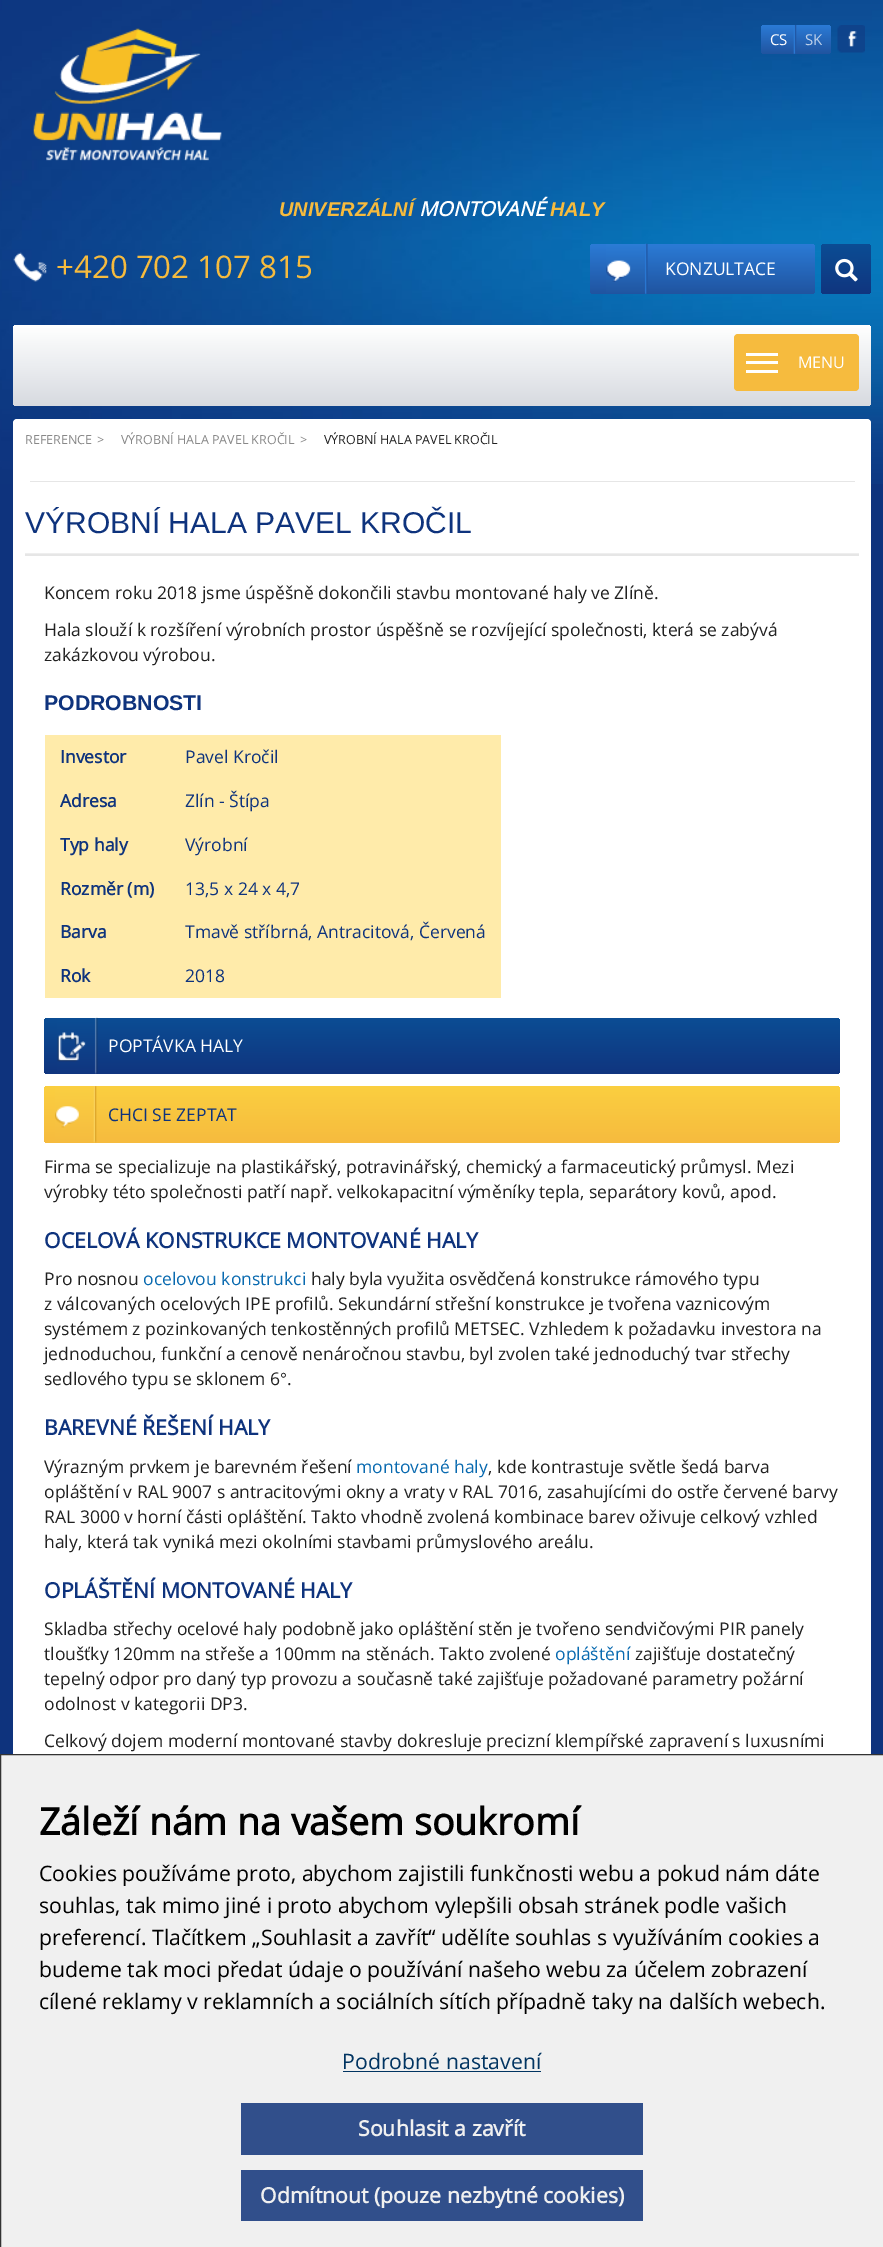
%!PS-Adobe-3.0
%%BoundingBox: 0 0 883 2247
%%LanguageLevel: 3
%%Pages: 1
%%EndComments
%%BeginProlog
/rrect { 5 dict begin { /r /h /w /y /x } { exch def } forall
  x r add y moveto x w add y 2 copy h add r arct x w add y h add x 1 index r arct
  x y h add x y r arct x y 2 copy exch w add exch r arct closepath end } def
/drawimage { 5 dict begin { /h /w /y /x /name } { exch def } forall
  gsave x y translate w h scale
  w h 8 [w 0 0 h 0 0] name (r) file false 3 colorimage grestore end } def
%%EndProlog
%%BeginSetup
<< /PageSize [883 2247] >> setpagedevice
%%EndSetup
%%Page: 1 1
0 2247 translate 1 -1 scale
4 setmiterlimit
0.055 0.2 0.49 setrgbcolor
0 0 883 2247 rectfill
(images/1.raw) 0 0 883 484 drawimage
(images/2.raw) 33 28 189 133 drawimage
gsave 761 25 70 29 4 rrect clip newpath
<< /ShadingType 2 /ColorSpace /DeviceRGB /Coords [796 25 796 54] /Extend [true true] /Function << /FunctionType 2 /Domain [0 1] /C0 [0.169 0.482 0.839] /C1 [0.125 0.329 0.627] /N 1 >> >> shfill grestore
(images/3.raw) 793 25 4 29 drawimage
(images/4.raw) 837 25 28 28 drawimage
(images/5.raw) 13 252 34 30 drawimage
gsave 590 244 225 50 4 rrect clip newpath
<< /ShadingType 2 /ColorSpace /DeviceRGB /Coords [703 244 703 294] /Extend [true true] /Function << /FunctionType 2 /Domain [0 1] /C0 [0.169 0.482 0.839] /C1 [0.125 0.329 0.627] /N 1 >> >> shfill grestore
(images/6.raw) 606 243 42 51 drawimage
gsave 821 244 50 50 4 rrect clip newpath
<< /ShadingType 2 /ColorSpace /DeviceRGB /Coords [846 244 846 294] /Extend [true true] /Function << /FunctionType 2 /Domain [0 1] /C0 [0.043 0.302 0.58] /C1 [0.063 0.208 0.498] /N 1 >> >> shfill grestore
(images/7.raw) 835 258 23 24 drawimage
gsave 13 325 858 81 4 rrect clip newpath
<< /ShadingType 2 /ColorSpace /DeviceRGB /Coords [442 325 442 406] /Extend [true true] /Function << /FunctionType 3 /Domain [0 1] /Functions [<< /FunctionType 2 /Domain [0 1] /C0 [1 1 1] /C1 [1 1 1] /N 1 >> << /FunctionType 2 /Domain [0 1] /C0 [1 1 1] /C1 [0.843 0.855 0.878] /N 1 >>] /Bounds [0.01] /Encode [0 1 0 1] >> >> shfill grestore
0.965 0.733 0.243 setrgbcolor
734 334 125 57 4 rrect fill
1 setgray
746 353 32 3 rectfill
746 361 32 3 rectfill
746 370 32 3 rectfill
13 419 858 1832 4 rrect fill
0.902 setgray
30 481 825 1 rectfill
25 554 834 2 rectfill
0.933 setgray
25 553 834 1 rectfill
1 0.922 0.667 setrgbcolor
45 735 456 44 rectfill
45 779 456 44 rectfill
45 823 456 43 rectfill
45 866 456 44 rectfill
45 910 456 44 rectfill
45 954 456 44 rectfill
gsave 44 1018 796 56 4 rrect clip newpath
<< /ShadingType 2 /ColorSpace /DeviceRGB /Coords [442 1018 442 1074] /Extend [true true] /Function << /FunctionType 2 /Domain [0 1] /C0 [0.043 0.302 0.58] /C1 [0.063 0.208 0.498] /N 1 >> >> shfill grestore
(images/8.raw) 57 1017 41 57 drawimage
gsave 44 1086 796 57 4 rrect clip newpath
<< /ShadingType 2 /ColorSpace /DeviceRGB /Coords [442 1086 442 1143] /Extend [true true] /Function << /FunctionType 2 /Domain [0 1] /C0 [0.984 0.812 0.251] /C1 [0.965 0.733 0.243] /N 1 >> >> shfill grestore
(images/9.raw) 55 1086 42 57 drawimage
0.941 setgray
newpath 0.5 1754.5 moveto 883.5 1754.5 lineto 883.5 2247.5 lineto 0.5 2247.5 lineto closepath gsave fill grestore
0.2 setgray
stroke
0.004 0.204 0.38 setrgbcolor
343 2071 198 1 rectfill
0.192 0.31 0.545 setrgbcolor
241 2103 402 52 rectfill
241 2170 402 51 rectfill
/OpenSans-Regular [15 0 0 -15 0 0] selectfont
1 setgray
770 45 moveto (CS) show
0.745 0.82 0.918 setrgbcolor
805 45 moveto (SK) show
/LiberationSans-BoldItalic [20 0 0 -20 0 0] selectfont
0.965 0.733 0.243 setrgbcolor
279 216 moveto (UNIVERZÁLNÍ) show
/OpenSans-BoldItalic [20 0 0 -20 0 0] selectfont
1 setgray
419 216 moveto (MONTOVANÉ) show
/LiberationSans-BoldItalic [20 0 0 -20 0 0] selectfont
0.965 0.733 0.243 setrgbcolor
550 216 moveto (HALY) show
/OpenSans-Regular [31.25 0 0 -31.25 0 0] selectfont
56 278 moveto (+420 702 107 815) show
/OpenSans-Regular [17.5 0 0 -17.5 0 0] selectfont
1 setgray
665 275 moveto (KONZULTACE) show
/OpenSans-Regular [16 0 0 -16 0 0] selectfont
798 368 moveto (MENU) show
/OpenSans-Regular [12.5 0 0 -12.5 0 0] selectfont
0.533 setgray
25 444 moveto (REFERENCE) show
97 444 moveto (>) show
121 444 moveto (VÝROBNÍ HALA PAVEL KROČIL) show
300 444 moveto (>) show
0.129 setgray
324 444 moveto (VÝROBNÍ HALA PAVEL KROČIL) show
/LiberationSans-Regular [30 0 0 -30 0 0] selectfont
0.055 0.2 0.49 setrgbcolor
25 533 moveto (VÝROBNÍ HALA PAVEL KROČIL) show
/OpenSans-Regular [17.5 0 0 -17.5 0 0] selectfont
0.129 setgray
44 599 moveto (Koncem roku 2018 jsme úspěšně dokončili stavbu montované haly ve Zlíně.) show
44 636 moveto (Hala slouží k rozšíření výrobních prostor úspěšně se rozvíjející společnosti, která se zabývá) show
44 661 moveto (zakázkovou výrobou.) show
/LiberationSans-Bold [21.25 0 0 -21.25 0 0] selectfont
0.055 0.2 0.49 setrgbcolor
44 710 moveto (PODROBNOSTI) show
/OpenSans-Bold [17.5 0 0 -17.5 0 0] selectfont
60 763 moveto (Investor) show
/OpenSans-Regular [17.5 0 0 -17.5 0 0] selectfont
185 763 moveto (Pavel Kročil) show
/OpenSans-Bold [17.5 0 0 -17.5 0 0] selectfont
60 807 moveto (Adresa) show
/OpenSans-Regular [17.5 0 0 -17.5 0 0] selectfont
185 807 moveto (Zlín - Štípa) show
/OpenSans-Bold [17.5 0 0 -17.5 0 0] selectfont
60 851 moveto (Typ haly) show
/OpenSans-Regular [17.5 0 0 -17.5 0 0] selectfont
185 851 moveto (Výrobní) show
/OpenSans-Bold [17.5 0 0 -17.5 0 0] selectfont
60 895 moveto (Rozměr \(m\)) show
/OpenSans-Regular [17.5 0 0 -17.5 0 0] selectfont
185 895 moveto (13,5 x 24 x 4,7) show
/OpenSans-Bold [17.5 0 0 -17.5 0 0] selectfont
60 938 moveto (Barva) show
/OpenSans-Regular [17.5 0 0 -17.5 0 0] selectfont
185 938 moveto (Tmavě stříbrná, Antracitová, Červená) show
/OpenSans-Bold [17.5 0 0 -17.5 0 0] selectfont
60 982 moveto (Rok) show
/OpenSans-Regular [17.5 0 0 -17.5 0 0] selectfont
185 982 moveto (2018) show
1 setgray
108 1052 moveto (POPTÁVKA HALY) show
0.055 0.2 0.49 setrgbcolor
108 1121 moveto (CHCI SE ZEPTAT) show
0.129 setgray
44 1173 moveto (Firma se specializuje na plastikářský, potravinářský, chemický a farmaceutický průmysl. Mezi) show
44 1198 moveto (výrobky této společnosti patří např. velkokapacitní výměníky tepla, separátory kovů, apod.) show
/OpenSans-Bold [21.25 0 0 -21.25 0 0] selectfont
0.055 0.2 0.49 setrgbcolor
44 1248 moveto (OCELOVÁ KONSTRUKCE MONTOVANÉ HALY) show
/OpenSans-Regular [17.5 0 0 -17.5 0 0] selectfont
0.129 setgray
44 1285 moveto (Pro nosnou) show
0.035 0.416 0.69 setrgbcolor
143 1285 moveto (ocelovou konstrukci) show
0.129 setgray
311 1285 moveto (haly byla využita osvědčená konstrukce rámového typu) show
44 1310 moveto (z válcovaných ocelových IPE profilů. Sekundární střešní konstrukce je tvořena vaznicovým) show
44 1335 moveto (systémem z pozinkovaných tenkostěnných profilů METSEC. Vzhledem k požadavku investora na) show
44 1360 moveto (jednoduchou, funkční a cenově nenáročnou stavbu, byl zvolen také jednoduchý tvar střechy) show
44 1385 moveto (sedlového typu se sklonem 6) show
/LiberationSans-Regular [17.5 0 0 -17.5 0 0] selectfont
280 1385 moveto (°) show
/OpenSans-Regular [17.5 0 0 -17.5 0 0] selectfont
287 1385 moveto (.) show
/OpenSans-Bold [21.25 0 0 -21.25 0 0] selectfont
0.055 0.2 0.49 setrgbcolor
44 1435 moveto (BAREVNÉ ŘEŠENÍ HALY) show
/OpenSans-Regular [17.5 0 0 -17.5 0 0] selectfont
0.129 setgray
44 1473 moveto (Výrazným prvkem je barevném řešení) show
0.035 0.416 0.69 setrgbcolor
356 1473 moveto (montované haly) show
0.129 setgray
488 1473 moveto (, kde kontrastuje světle šedá barva) show
44 1498 moveto (opláštění v RAL 9007 s antracitovými okny a vraty v RAL 7016, zasahujícími do ostře červené barvy) show
44 1523 moveto (RAL 3000 v horní části opláštění. Takto vhodně zvolená kombinace barev oživuje celkový vzhled) show
44 1548 moveto (haly, která tak vyniká mezi okolními stavbami průmyslového areálu.) show
/OpenSans-Bold [21.25 0 0 -21.25 0 0] selectfont
0.055 0.2 0.49 setrgbcolor
44 1598 moveto (OPLÁŠTĚNÍ MONTOVANÉ HALY) show
/OpenSans-Regular [17.5 0 0 -17.5 0 0] selectfont
0.129 setgray
44 1635 moveto (Skladba střechy ocelové haly podobně jako opláštění stěn je tvořeno sendvičovými PIR panely) show
44 1660 moveto (tloušťky 120mm na střeše a 100mm na stěnách. Takto zvolené) show
0.035 0.416 0.69 setrgbcolor
555 1660 moveto (opláštění) show
0.129 setgray
635 1660 moveto (zajišťuje dostatečný) show
44 1685 moveto (tepelný odpor pro daný typ provozu a současně také zajišťuje požadované parametry požární) show
44 1710 moveto (odolnost v kategorii DP3.) show
44 1747 moveto (Celkový dojem moderní montované stavby dokresluje precizní klempířské zapravení s luxusními) show
/OpenSans-Bold [37.5 0 0 -37.5 0 0] selectfont
0 setgray
39 1835 moveto (Záleží nám na vašem soukromí) show
/OpenSans-Regular [21.25 0 0 -21.25 0 0] selectfont
39 1881 moveto (Cookies používáme proto, abychom zajistili funkčnosti webu a pokud nám dáte) show
39 1913 moveto (souhlas, tak mimo jiné i proto abychom vylepšili obsah stránek podle vašich) show
39 1945 moveto (preferencí. Tlačítkem „Souhlasit a zavřít“ udělíte souhlas s využíváním cookies a) show
39 1977 moveto (budeme tak moci předat údaje o používání našeho webu za účelem zobrazení) show
39 2009 moveto (cílené reklamy v reklamních a sociálních sítích případně taky na dalších webech.) show
0.004 0.204 0.38 setrgbcolor
342 2069 moveto (Podrobné nastavení) show
/OpenSans-Bold [21.25 0 0 -21.25 0 0] selectfont
0.941 setgray
358 2136 moveto (Souhlasit a zavřít) show
260 2203 moveto (Odmítnout \(pouze nezbytné cookies\)) show
showpage
%%EOF
